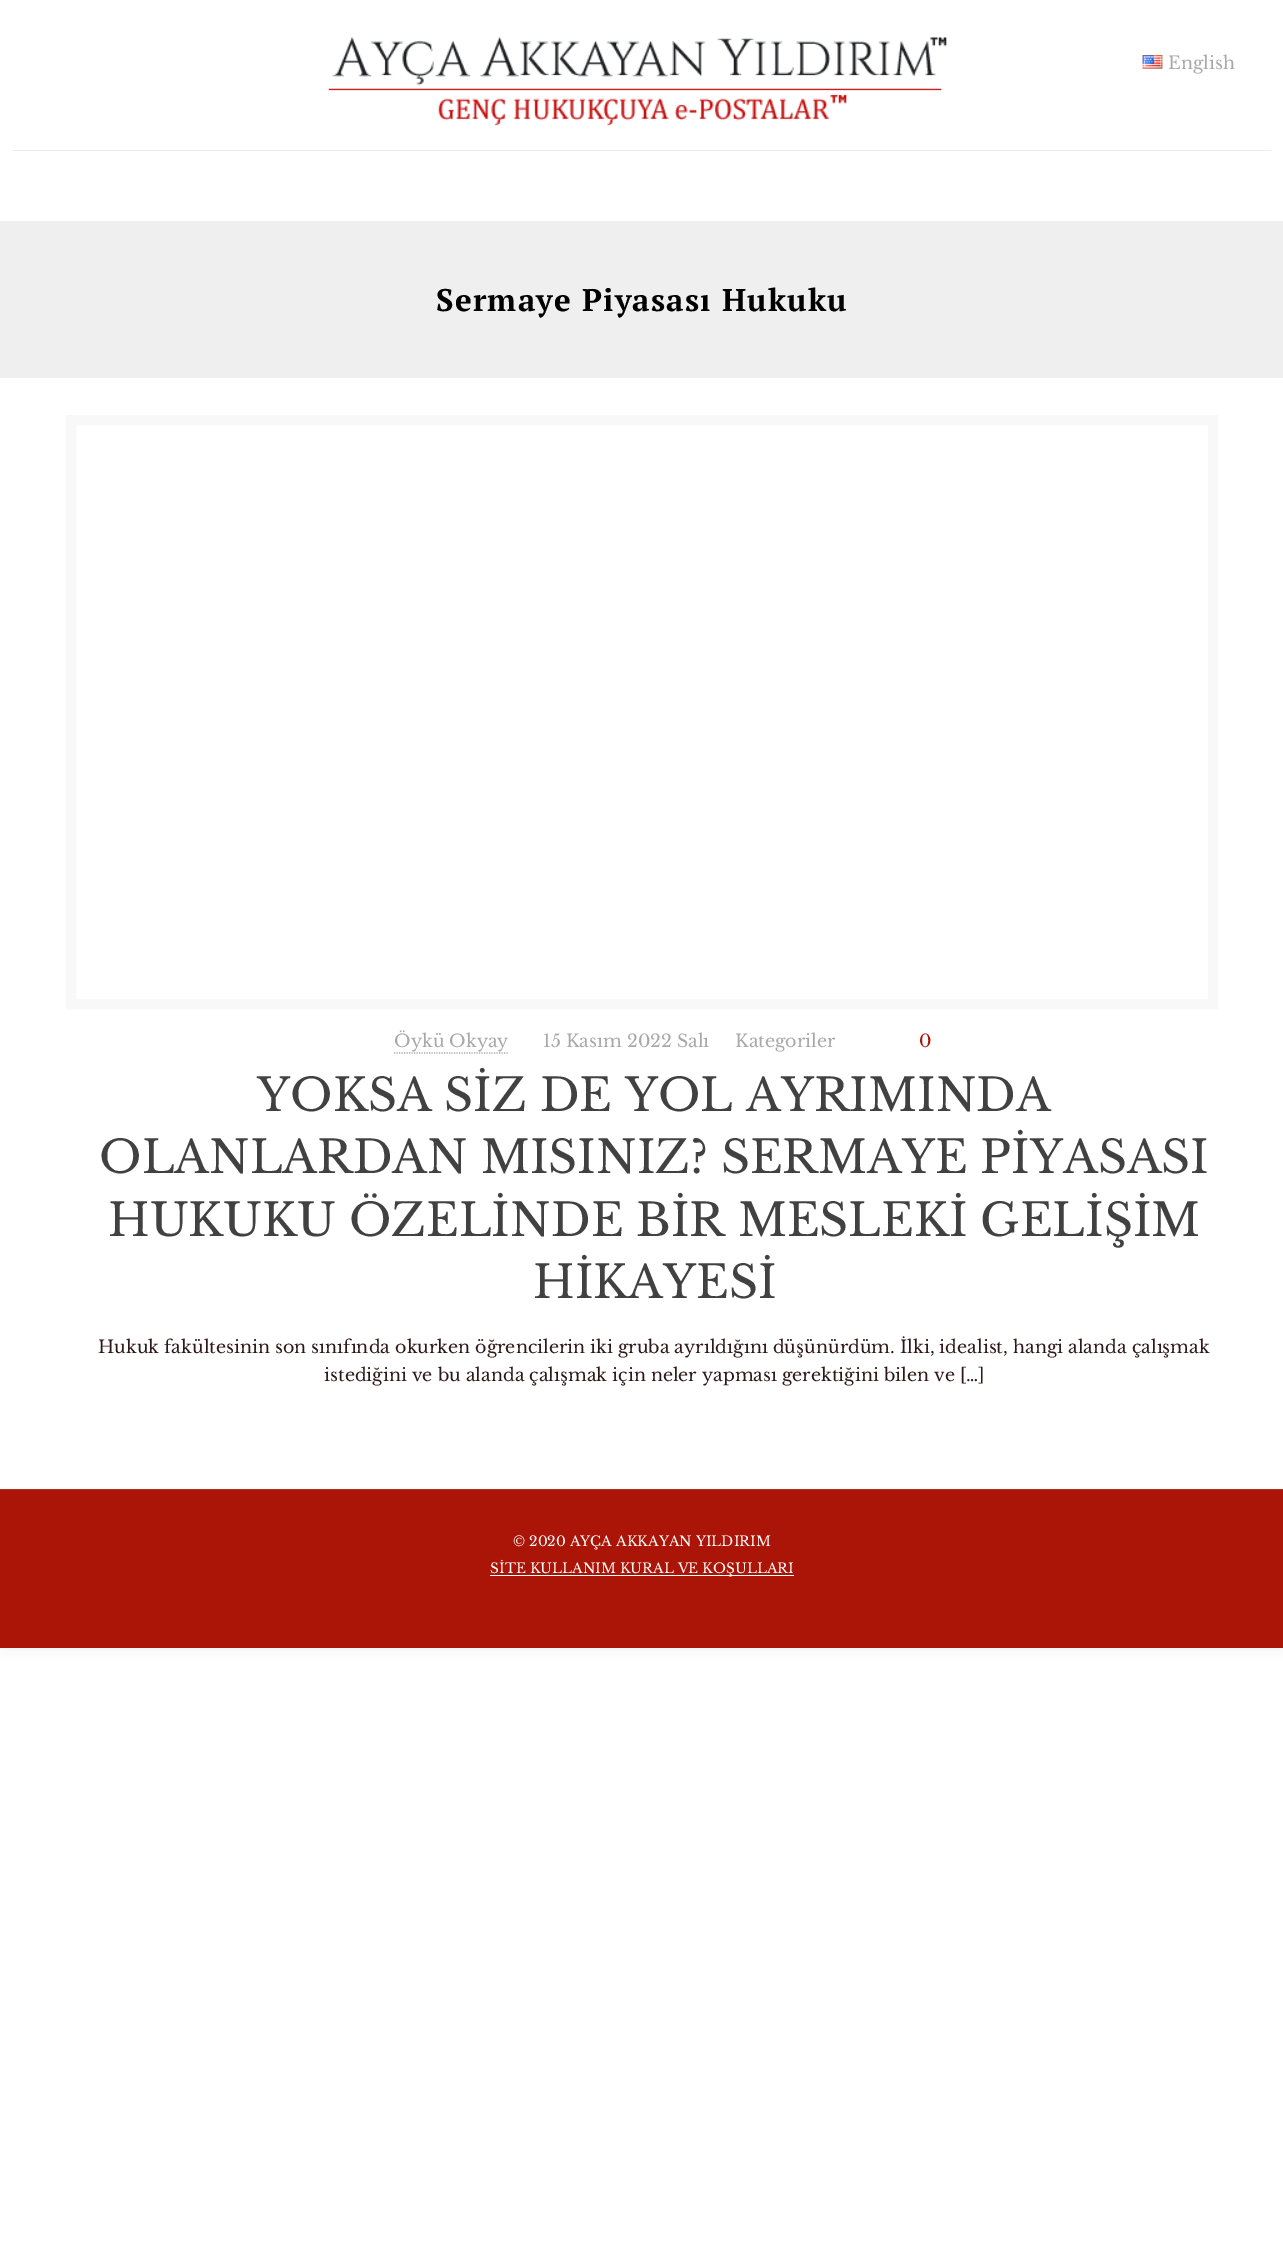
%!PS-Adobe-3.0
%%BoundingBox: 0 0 1283 2260
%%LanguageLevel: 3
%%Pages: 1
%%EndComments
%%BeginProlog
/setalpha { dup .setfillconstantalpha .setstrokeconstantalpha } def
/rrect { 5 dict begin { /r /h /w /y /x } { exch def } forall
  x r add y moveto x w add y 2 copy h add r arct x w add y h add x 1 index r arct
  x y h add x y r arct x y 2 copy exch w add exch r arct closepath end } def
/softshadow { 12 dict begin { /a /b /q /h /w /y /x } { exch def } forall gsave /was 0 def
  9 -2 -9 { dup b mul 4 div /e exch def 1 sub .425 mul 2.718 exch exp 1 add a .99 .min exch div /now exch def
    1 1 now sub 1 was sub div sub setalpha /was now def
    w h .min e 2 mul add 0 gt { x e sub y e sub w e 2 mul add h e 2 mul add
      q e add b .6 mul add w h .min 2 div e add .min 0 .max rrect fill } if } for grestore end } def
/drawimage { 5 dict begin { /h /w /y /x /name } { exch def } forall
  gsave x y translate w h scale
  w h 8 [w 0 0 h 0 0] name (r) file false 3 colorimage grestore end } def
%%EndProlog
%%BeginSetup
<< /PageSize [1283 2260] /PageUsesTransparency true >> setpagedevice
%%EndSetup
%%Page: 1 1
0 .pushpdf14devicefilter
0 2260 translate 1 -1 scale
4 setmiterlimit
1 setgray
0 0 1283 2260 rectfill
0 setgray
0 0 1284 1648 0 9.5 0.06 softshadow
1 setgray
0 378 1283 1111 rectfill
0.937 setgray
0 221 1283 157 rectfill
1 setgray
0 0 1283 221 rectfill
0.922 setgray
13 150 1258 1 rectfill
(images/1.raw) 328 37 619 89 drawimage
(images/2.raw) 1142 55 21 14 drawimage
0.973 setgray
10 setlinewidth
71 420 1142 584 rectstroke
0.659 setgray
1.2 setlinewidth
[1.25 1.25] 0 setdash
newpath 394 1053 moveto 509 1053 lineto stroke
0.671 0.082 0.027 setrgbcolor
0 1490 1283 158 rectfill
0.702 0.173 0.125 setrgbcolor
0 1489 1283 1 rectfill
1 setgray
490 1575 304 1 rectfill
/LibreBaskerville-Regular [17.5 0 0 -17.5 0 0] selectfont
0.659 setgray
1168 69 moveto (English) show
/PTSerif-Bold [31.25 0 0 -31.25 0 0] selectfont
0 setgray
436 311 moveto 1.25 0 (Sermaye Piyasası Hukuku) ashow
/LibreBaskerville-Regular [17.5 0 0 -17.5 0 0] selectfont
0.659 setgray
394 1047 moveto (Öykü Okyay) show
543 1047 moveto (15 Kasım 2022 Salı) show
735 1047 moveto (Kategoriler) show
0.671 0.082 0.027 setrgbcolor
919 1047 moveto (0) show
/LibreBaskerville-Regular [45 0 0 -45 0 0] selectfont
0.255 setgray
257 1111 moveto (YOKSA SİZ DE YOL AYRIMINDA) show
99 1173 moveto (OLANLARDAN MISINIZ? SERMAYE PİYASASI) show
108 1236 moveto (HUKUKU ÖZELİNDE BİR MESLEKİ GELİŞİM) show
533 1298 moveto (HİKAYESİ) show
/LibreBaskerville-Regular [17.5 0 0 -17.5 0 0] selectfont
0.184 0.094 0.094 setrgbcolor
98 1353 moveto (Hukuk fakültesinin son sınıfında okurken öğrencilerin iki gruba ayrıldığını düşünürdüm. İlki, idealist, hangi alanda çalışmak) show
324 1381 moveto (istediğini ve bu alanda çalışmak için neler yapması gerektiğini bilen ve […]) show
/LibreBaskerville-Regular [13.75 0 0 -13.75 0 0] selectfont
1 setgray
513 1546 moveto (© 2020 AYÇA AKKAYAN YILDIRIM) show
490 1573 moveto (SİTE KULLANIM KURAL VE KOŞULLARI) show
.poppdf14devicefilter showpage
%%EOF
